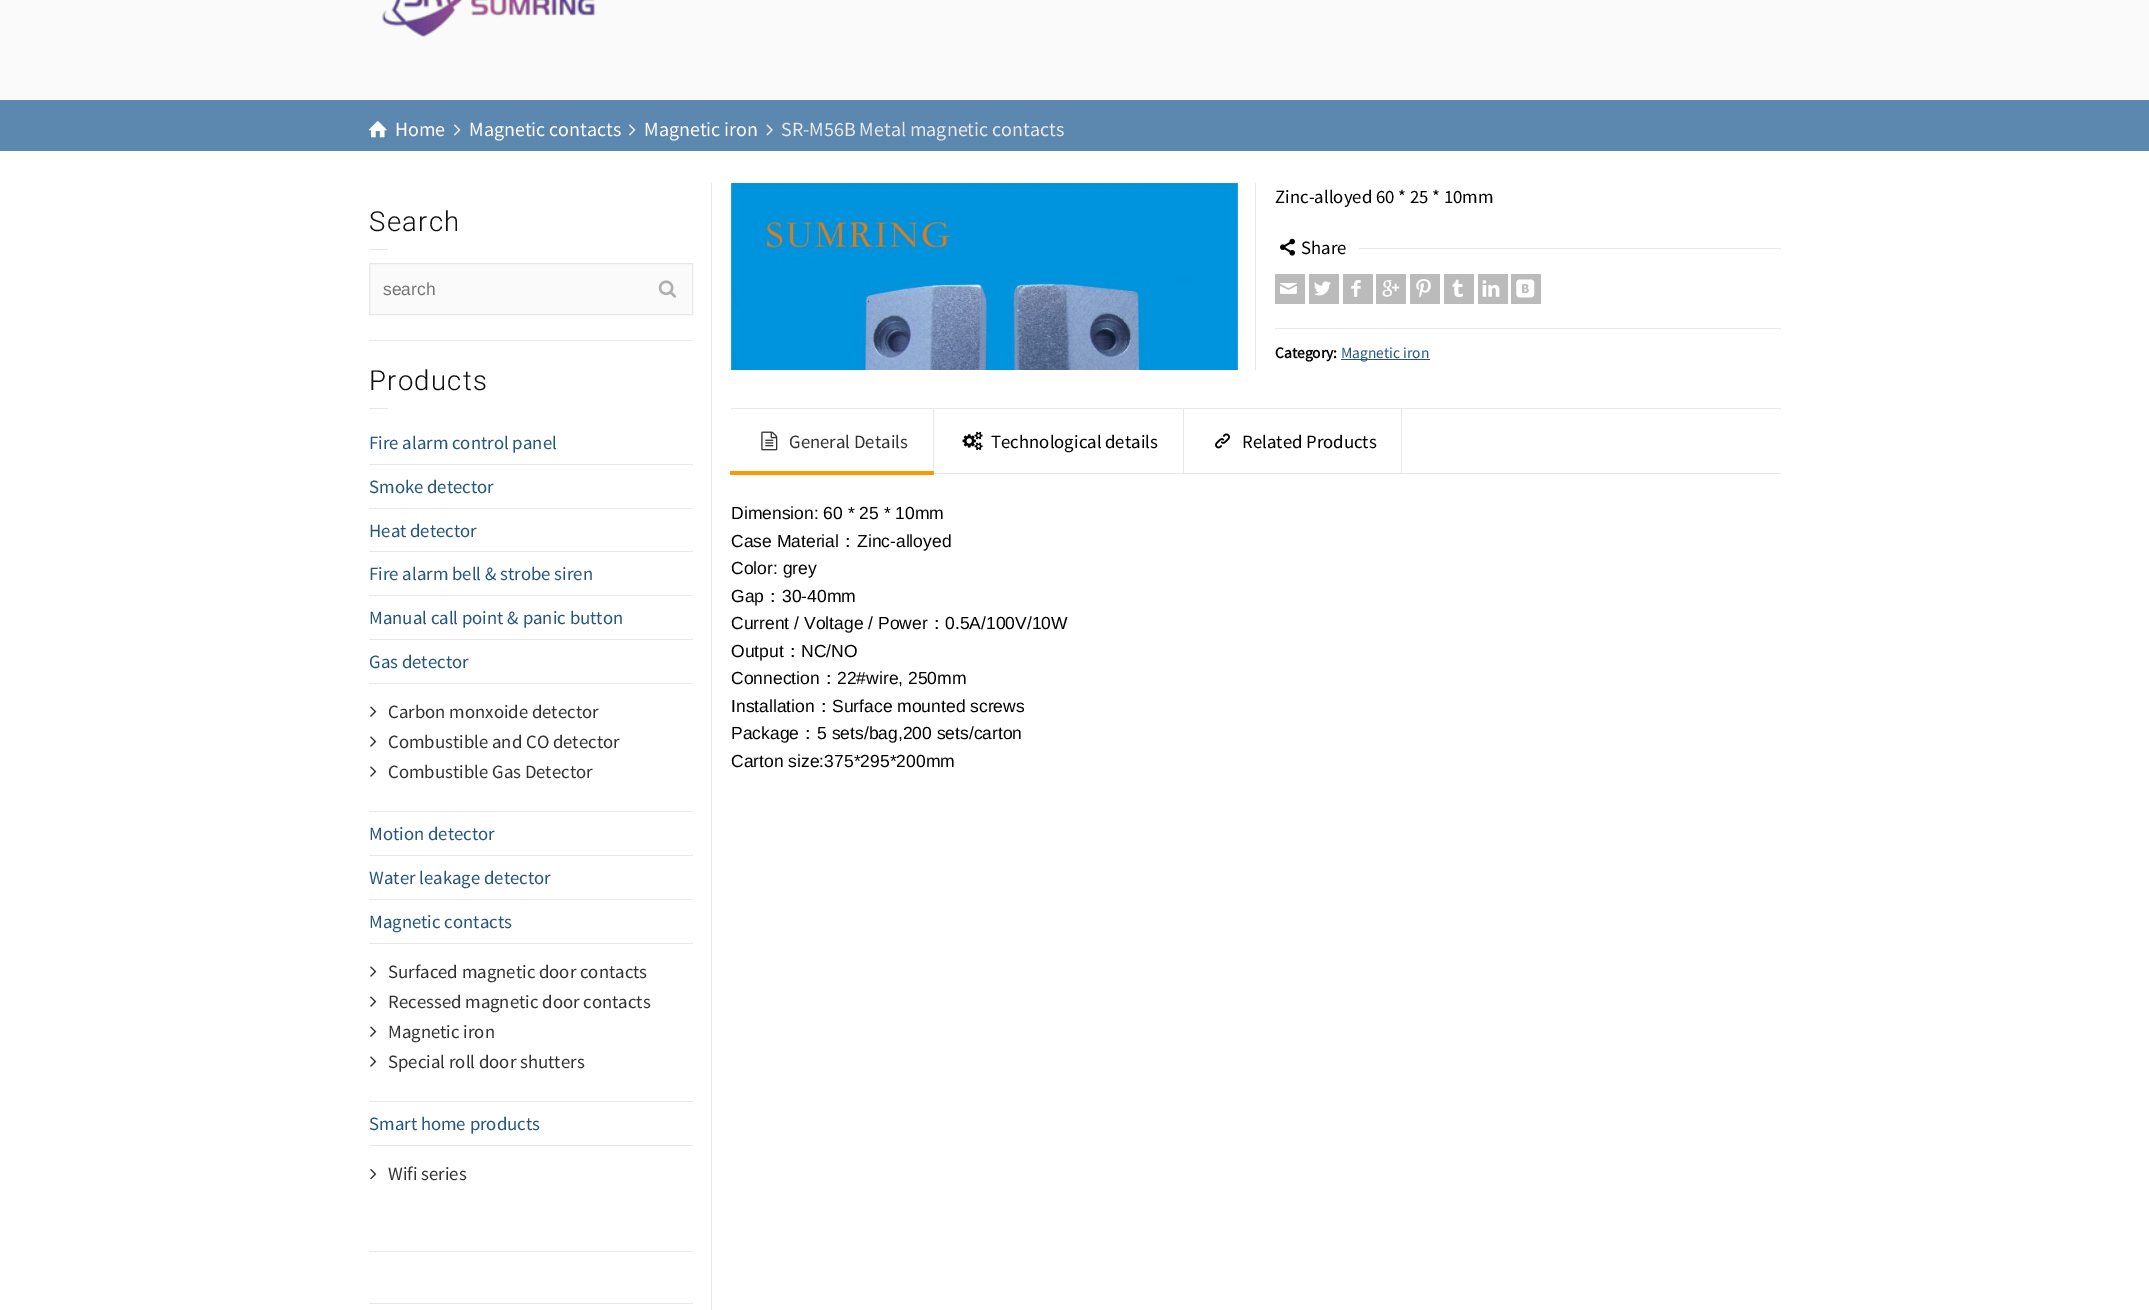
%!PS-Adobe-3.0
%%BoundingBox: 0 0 2149 1310
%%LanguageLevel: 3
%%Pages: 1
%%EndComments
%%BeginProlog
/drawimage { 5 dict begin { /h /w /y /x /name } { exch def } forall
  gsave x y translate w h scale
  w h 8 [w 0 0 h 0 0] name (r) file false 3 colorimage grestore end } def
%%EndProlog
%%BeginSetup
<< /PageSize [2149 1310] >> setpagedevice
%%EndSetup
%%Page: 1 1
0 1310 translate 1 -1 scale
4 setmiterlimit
0.98 setgray
0 0 2149 1310 rectfill
(images/1.raw) 382 0 214 37 drawimage
0.361 0.533 0.686 setrgbcolor
0 100 2149 51 rectfill
(images/2.raw) 368 121 19 17 drawimage
(images/3.raw) 454 124 7 12 drawimage
(images/3.raw) 629 124 7 12 drawimage
(images/4.raw) 766 124 7 12 drawimage
1 setgray
0 151 2149 1159 rectfill
0.91 setgray
711 183 1 1127 rectfill
369 249 19 1 rectfill
0.98 setgray
newpath 369.5 263.5 moveto 692.5 263.5 lineto 692.5 314.5 lineto 369.5 314.5 lineto closepath gsave fill grestore
0.91 setgray
stroke
(images/5.raw) 658 280 19 18 drawimage
369 340 324 1 rectfill
369 408 19 1 rectfill
369 464 324 1 rectfill
369 508 324 1 rectfill
369 551 324 1 rectfill
369 595 324 1 rectfill
369 639 324 1 rectfill
369 811 324 1 rectfill
369 683 324 1 rectfill
(images/6.raw) 370 706 7 11 drawimage
(images/6.raw) 370 736 7 11 drawimage
(images/6.raw) 370 766 7 11 drawimage
369 855 324 1 rectfill
369 899 324 1 rectfill
369 1101 324 1 rectfill
369 943 324 1 rectfill
(images/6.raw) 370 966 7 11 drawimage
(images/6.raw) 370 996 7 11 drawimage
(images/6.raw) 370 1026 7 11 drawimage
(images/6.raw) 370 1056 7 11 drawimage
369 1145 324 1 rectfill
(images/7.raw) 370 1169 7 11 drawimage
369 1251 324 1 rectfill
369 1303 324 1 rectfill
(images/8.raw) 731 183 507 187 drawimage
1255 183 1 187 rectfill
(images/9.raw) 1280 238 15 18 drawimage
1359 248 422 1 rectfill
0.733 setgray
1275 274 30 30 rectfill
(images/10.raw) 1280 283 17 11 drawimage
1309 274 30 30 rectfill
(images/11.raw) 1314 281 17 15 drawimage
1343 274 30 30 rectfill
(images/12.raw) 1351 280 10 17 drawimage
1376 274 30 30 rectfill
(images/13.raw) 1382 280 18 17 drawimage
1410 274 30 30 rectfill
(images/14.raw) 1416 279 15 19 drawimage
1444 274 30 30 rectfill
(images/15.raw) 1452 279 11 18 drawimage
1478 274 30 30 rectfill
(images/16.raw) 1482 280 18 17 drawimage
1511 274 30 30 rectfill
(images/17.raw) 1516 279 19 19 drawimage
0.91 setgray
1275 328 506 1 rectfill
0.149 0.337 0.502 setrgbcolor
1341 359 89 1 rectfill
0.91 setgray
731 408 1050 1 rectfill
934 473 847 1 rectfill
933 409 1 64 rectfill
(images/18.raw) 761 431 17 20 drawimage
0.996 0.6 0 setrgbcolor
730 471 204 4 rectfill
0.91 setgray
1183 409 1 64 rectfill
(images/19.raw) 962 431 21 20 drawimage
1401 409 1 64 rectfill
(images/20.raw) 1215 433 15 16 drawimage
/SourceSansPro-Regular [20 0 0 -20 0 0] selectfont
1 setgray
395 136 moveto (Home) show
469 136 moveto (Magnetic contacts) show
644 136 moveto (Magnetic iron) show
0.918 setgray
781 136 moveto (SR-M56B Metal magnetic contacts) show
/Roboto-Light [27.5 0 0 -27.5 0 0] selectfont
0.067 setgray
369 231 moveto 1.25 0 (Search) ashow
/LiberationSans-Regular [17.5 0 0 -17.5 0 0] selectfont
0.459 setgray
383 295 moveto (search) show
/Roboto-Light [27.5 0 0 -27.5 0 0] selectfont
0.067 setgray
369 390 moveto 1.25 0 (Products) ashow
/SourceSansPro-Regular [18.75 0 0 -18.75 0 0] selectfont
0.149 0.337 0.502 setrgbcolor
369 449 moveto (Fire alarm control panel) show
369 493 moveto (Smoke detector) show
369 537 moveto (Heat detector) show
369 580 moveto (Fire alarm bell & strobe siren) show
369 624 moveto (Manual call point & panic button) show
369 668 moveto (Gas detector) show
0.2 setgray
388 718 moveto (Carbon monxoide detector) show
388 748 moveto (Combustible and CO detector) show
388 778 moveto (Combustible Gas Detector) show
0.149 0.337 0.502 setrgbcolor
369 840 moveto (Motion detector) show
369 884 moveto (Water leakage detector) show
369 928 moveto (Magnetic contacts) show
0.2 setgray
388 978 moveto (Surfaced magnetic door contacts) show
388 1008 moveto (Recessed magnetic door contacts) show
388 1038 moveto (Magnetic iron) show
388 1068 moveto (Special roll door shutters) show
0.149 0.337 0.502 setrgbcolor
369 1130 moveto (Smart home products) show
0.2 setgray
388 1180 moveto (Wifi series) show
0 setgray
1275 203 moveto (Zinc-alloyed 60 * 25 * 10mm) show
1301 254 moveto (Share) show
/SourceSansPro-Bold [15.5 0 0 -15.5 0 0] selectfont
1275 358 moveto (Category:) show
/SourceSansPro-Regular [15.5 0 0 -15.5 0 0] selectfont
0.149 0.337 0.502 setrgbcolor
1341 358 moveto (Magnetic iron) show
/SourceSansPro-Regular [18.75 0 0 -18.75 0 0] selectfont
0.2 setgray
789 448 moveto (General Details) show
0 setgray
991 448 moveto (Technological details) show
1242 448 moveto (Related Products) show
/LiberationSans-Regular [17.5 0 0 -17.5 0 0] selectfont
731 519 moveto (Dimension: 60 * 25 * 10mm) show
731 547 moveto (Case Material) show
/WenQuanYiZenHei-Medium [17.5 0 0 -17.5 0 0] selectfont
839 547 moveto (：) show
/LiberationSans-Regular [17.5 0 0 -17.5 0 0] selectfont
857 547 moveto (Zinc-alloyed) show
731 574 moveto (Color: grey) show
731 602 moveto (Gap) show
/WenQuanYiZenHei-Medium [17.5 0 0 -17.5 0 0] selectfont
764 602 moveto (：) show
/LiberationSans-Regular [17.5 0 0 -17.5 0 0] selectfont
782 602 moveto (30-40mm) show
731 629 moveto (Current / Voltage / Power) show
/WenQuanYiZenHei-Medium [17.5 0 0 -17.5 0 0] selectfont
928 629 moveto (：) show
/LiberationSans-Regular [17.5 0 0 -17.5 0 0] selectfont
945 629 moveto (0.5A/100V/10W) show
731 657 moveto (Output) show
/WenQuanYiZenHei-Medium [17.5 0 0 -17.5 0 0] selectfont
784 657 moveto (：) show
/LiberationSans-Regular [17.5 0 0 -17.5 0 0] selectfont
801 657 moveto (NC/NO) show
731 684 moveto (Connection) show
/WenQuanYiZenHei-Medium [17.5 0 0 -17.5 0 0] selectfont
820 684 moveto (：) show
/LiberationSans-Regular [17.5 0 0 -17.5 0 0] selectfont
837 684 moveto (22#wire, 250mm) show
731 712 moveto (Installation) show
/WenQuanYiZenHei-Medium [17.5 0 0 -17.5 0 0] selectfont
815 712 moveto (：) show
/LiberationSans-Regular [17.5 0 0 -17.5 0 0] selectfont
832 712 moveto (Surface mounted screws) show
731 739 moveto (Package) show
/WenQuanYiZenHei-Medium [17.5 0 0 -17.5 0 0] selectfont
799 739 moveto (：) show
/LiberationSans-Regular [17.5 0 0 -17.5 0 0] selectfont
817 739 moveto (5 sets/bag,200 sets/carton) show
731 767 moveto (Carton size:375*295*200mm) show
showpage
%%EOF
